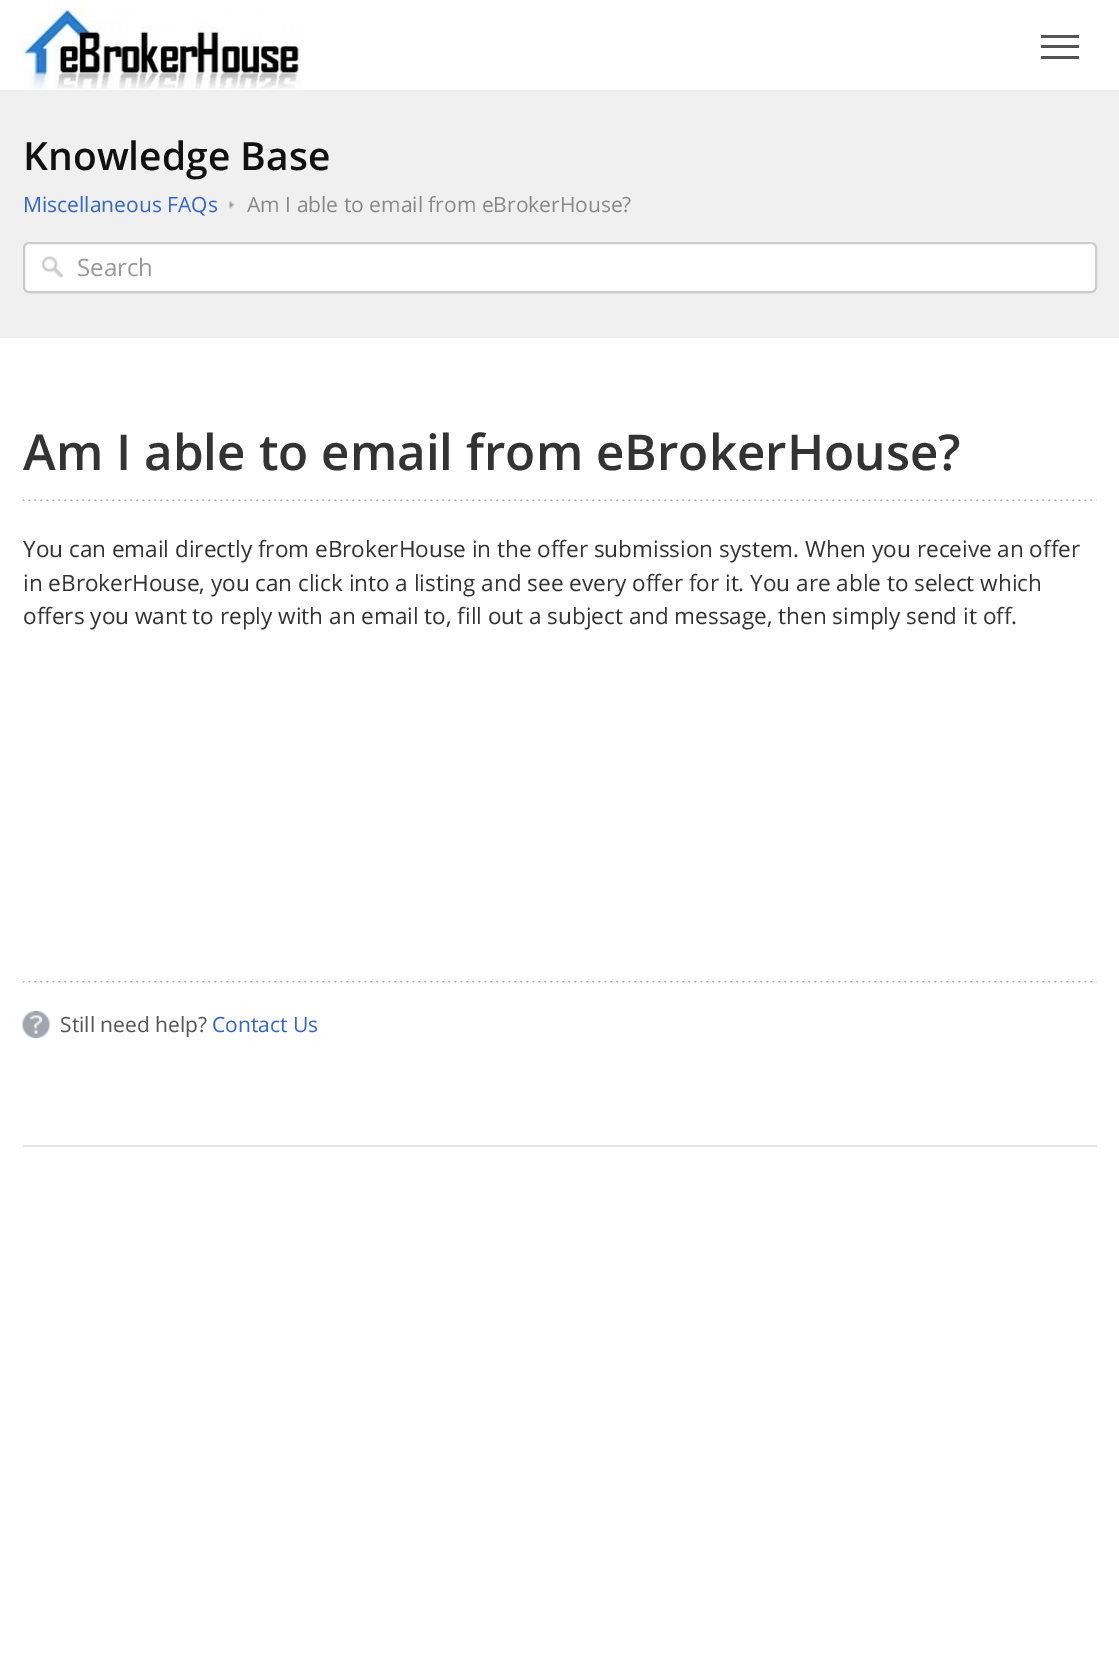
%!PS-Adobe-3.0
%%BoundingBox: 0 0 1119 1676
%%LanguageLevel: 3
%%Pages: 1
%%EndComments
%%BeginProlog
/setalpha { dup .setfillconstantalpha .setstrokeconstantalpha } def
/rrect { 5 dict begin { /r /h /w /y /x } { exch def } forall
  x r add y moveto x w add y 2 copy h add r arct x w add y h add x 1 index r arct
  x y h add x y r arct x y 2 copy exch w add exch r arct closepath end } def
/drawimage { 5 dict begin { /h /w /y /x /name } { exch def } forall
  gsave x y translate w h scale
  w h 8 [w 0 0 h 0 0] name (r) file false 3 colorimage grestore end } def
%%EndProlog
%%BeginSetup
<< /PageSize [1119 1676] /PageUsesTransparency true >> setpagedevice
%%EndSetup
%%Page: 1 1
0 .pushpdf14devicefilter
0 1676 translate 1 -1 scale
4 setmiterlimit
1 setgray
0 0 1119 1676 rectfill
(images/1.raw) 22 7 279 82 drawimage
0.333 setgray
1041 35 38 3 rectfill
1041 45 38 3 rectfill
1041 56 38 3 rectfill
0.941 setgray
0 90 1119 248 rectfill
(images/2.raw) 229 201 5 8 drawimage
1 setgray
23 242 1074 51 6 rrect fill
(images/3.raw) 42 256 21 22 drawimage
0.2 setalpha
0 setgray
2 setlinewidth
24 243 1072 49 5 rrect stroke
1 setalpha
0.898 setgray
23 1145 1074 2 rectfill
(images/4.raw) 22 499 1075 2 drawimage
(images/5.raw) 22 981 1075 2 drawimage
(images/6.raw) 22 1011 28 27 drawimage
/OpenSans-SemiBold [39 0 0 -39 0 0] selectfont
0.067 setgray
23 170 moveto (Knowledge Base) show
/OpenSans-Regular [21 0 0 -21 0 0] selectfont
0.2 0.4 0.8 setrgbcolor
23 212 moveto (Miscellaneous FAQs) show
0.533 setgray
247 212 moveto (Am I able to email from eBrokerHouse?) show
/OpenSans-Regular [24 0 0 -24 0 0] selectfont
0.6 setgray
77 276 moveto (Search) show
/OpenSans-SemiBold [49.5 0 0 -49.5 0 0] selectfont
0.2 setgray
23 470 moveto (Am I able to email from eBrokerHouse?) show
/OpenSans-Regular [22.5 0 0 -22.5 0 0] selectfont
23 557 moveto (You can email directly from eBrokerHouse in the offer submission system. When you receive an offer) show
23 591 moveto (in eBrokerHouse, you can click into a listing and see every offer for it. You are able to select which) show
23 624 moveto (offers you want to reply with an email to, fill out a subject and message, then simply send it off.) show
/OpenSans-Regular [21 0 0 -21 0 0] selectfont
0.333 setgray
60 1032 moveto (Still need help?) show
0.2 0.4 0.8 setrgbcolor
212 1032 moveto (Contact Us) show
.poppdf14devicefilter showpage
%%EOF
